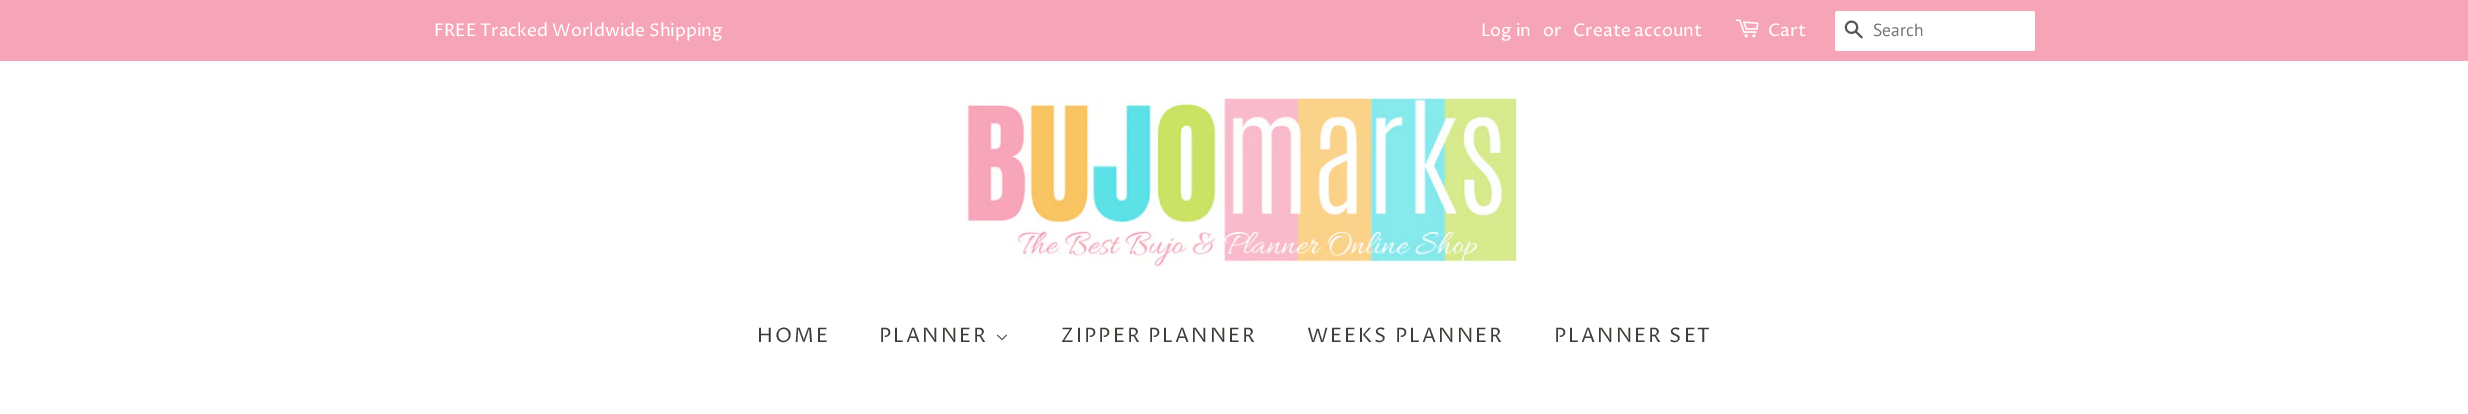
%!PS-Adobe-3.0
%%BoundingBox: 0 0 2468 414
%%LanguageLevel: 3
%%Pages: 1
%%EndComments
%%BeginProlog
/rrect { 5 dict begin { /r /h /w /y /x } { exch def } forall
  x r add y moveto x w add y 2 copy h add r arct x w add y h add x 1 index r arct
  x y h add x y r arct x y 2 copy exch w add exch r arct closepath end } def
/drawimage { 5 dict begin { /h /w /y /x /name } { exch def } forall
  gsave x y translate w h scale
  w h 8 [w 0 0 h 0 0] name (r) file false 3 colorimage grestore end } def
%%EndProlog
%%BeginSetup
<< /PageSize [2468 414] >> setpagedevice
%%EndSetup
%%Page: 1 1
0 414 translate 1 -1 scale
4 setmiterlimit
1 setgray
0 0 2468 414 rectfill
0.965 0.647 0.722 setrgbcolor
0 0 2468 61 rectfill
(images/1.raw) 1735 19 24 19 drawimage
1 setgray
1835 11 200 40 2.5 rrect fill
(images/2.raw) 1844 20 19 19 drawimage
(images/3.raw) 964 98 553 173 drawimage
(images/4.raw) 997 334 10 7 drawimage
/ProzaLibre-Regular [17.5 0 0 -17.5 0 0] selectfont
434 36 moveto (FREE Tracked Worldwide Shipping) show
1481 36 moveto (Log in) show
1543 36 moveto (or) show
1573 36 moveto (Create account) show
1768 36 moveto (Cart) show
/PTSans-Regular [17.5 0 0 -17.5 0 0] selectfont
0.459 setgray
1873 36 moveto (Search) show
/ProzaLibre-Regular [20 0 0 -20 0 0] selectfont
0.251 0.231 0.216 setrgbcolor
757 342 moveto 2 0 (HOME) ashow
879 342 moveto 2 0 (PLANNER) ashow
1061 342 moveto 2 0 (ZIPPER PLANNER) ashow
1307 342 moveto 2 0 (WEEKS PLANNER) ashow
1554 342 moveto 2 0 (PLANNER SET) ashow
showpage
%%EOF
